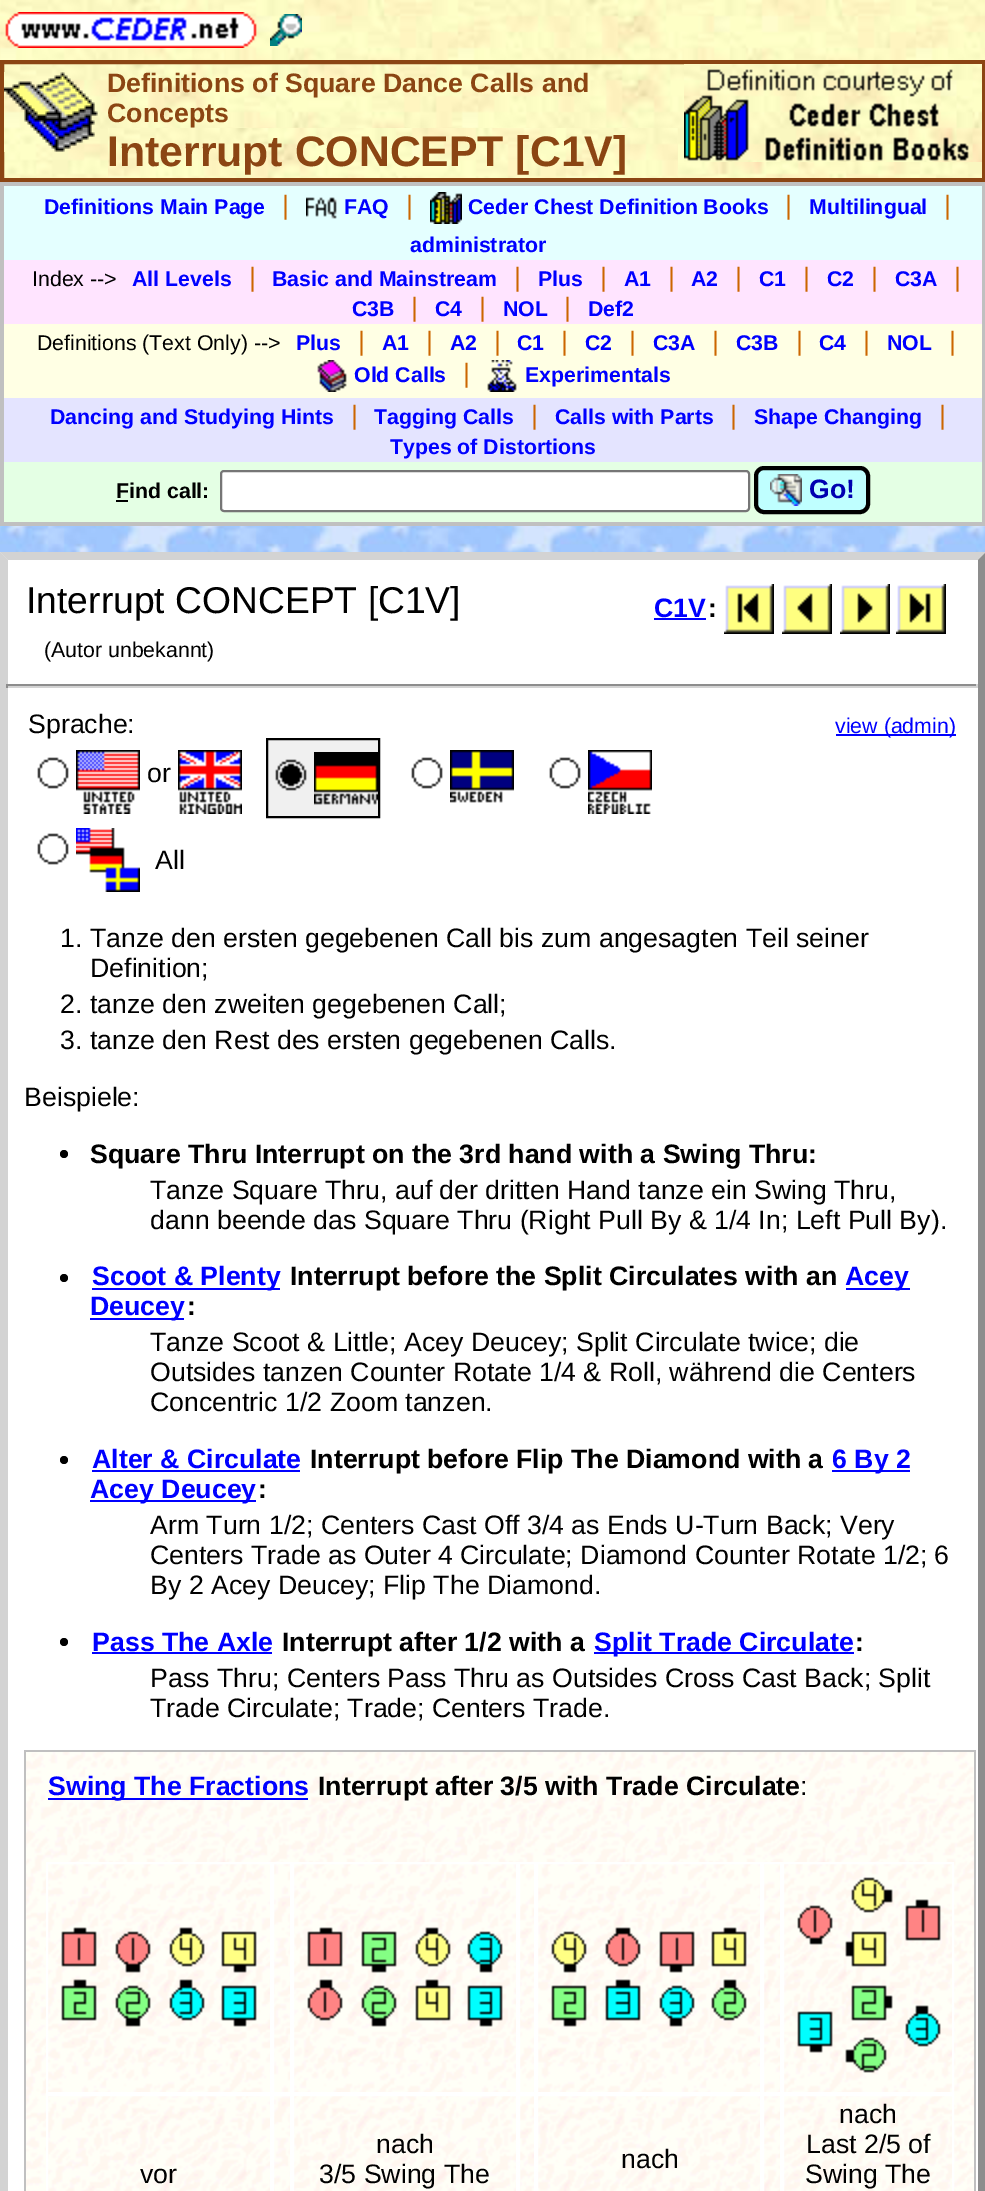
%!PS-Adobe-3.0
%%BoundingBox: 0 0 985 2191
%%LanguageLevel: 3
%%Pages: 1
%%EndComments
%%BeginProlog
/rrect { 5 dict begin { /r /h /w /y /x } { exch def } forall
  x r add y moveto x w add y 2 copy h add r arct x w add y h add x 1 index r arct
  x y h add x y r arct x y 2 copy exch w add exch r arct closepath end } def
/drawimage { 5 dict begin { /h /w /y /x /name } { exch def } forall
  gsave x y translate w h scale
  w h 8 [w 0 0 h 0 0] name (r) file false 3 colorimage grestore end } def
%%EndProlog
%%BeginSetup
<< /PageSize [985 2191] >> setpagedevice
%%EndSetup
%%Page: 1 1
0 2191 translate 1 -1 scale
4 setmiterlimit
1 setgray
0 0 985 2191 rectfill
(images/1.raw) 0 526 985 26 drawimage
(images/2.raw) 0 0 985 60 drawimage
(images/3.raw) 5 12 252 36 drawimage
(images/4.raw) 270 14 32 32 drawimage
(images/5.raw) 4 64 978 114 drawimage
0.545 0.271 0.075 setrgbcolor
4 setlinewidth
2 62 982 118 rectstroke
(images/6.raw) 4 72 94 80 drawimage
(images/7.raw) 108 128 570 50 drawimage
(images/8.raw) 684 64 298 98 drawimage
(images/9.raw) 684 69 285 92 drawimage
0.753 setgray
0 182 985 4 rectfill
982 182 3 344 rectfill
0 522 985 4 rectfill
0 182 4 344 rectfill
0.894 1 1 setrgbcolor
4 186 978 74 rectfill
(images/10.raw) 306 197 31 22 drawimage
(images/11.raw) 430 192 32 32 drawimage
1 0.894 1 setrgbcolor
4 260 978 64 rectfill
1 1 0.894 setrgbcolor
4 324 978 74 rectfill
(images/12.raw) 317 360 30 32 drawimage
(images/13.raw) 487 360 30 32 drawimage
0.894 0.894 1 setrgbcolor
4 398 978 64 rectfill
0.894 1 0.894 setrgbcolor
4 462 978 60 rectfill
0 setgray
116 500 12 2 rectfill
1 setgray
221 471 528 40 3 rrect gsave fill grestore
0.463 setgray
2 setlinewidth
stroke
0.749 1 1 setrgbcolor
756 468 112 44 8 rrect gsave fill grestore
0 setgray
4 setlinewidth
stroke
(images/14.raw) 770 474 32 32 drawimage
0.827 setgray
newpath 0 552 moveto 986 552 lineto 978 560 lineto 8 560 lineto closepath fill
0.553 setgray
newpath 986 552 moveto 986 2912 lineto 978 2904 lineto 978 560 lineto closepath fill
0.827 setgray
newpath 0 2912 moveto 0 552 lineto 8 560 lineto 8 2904 lineto closepath fill
0 0 1 setrgbcolor
654 618 52 2 rectfill
(images/15.raw) 724 584 50 50 drawimage
(images/16.raw) 782 584 50 50 drawimage
(images/17.raw) 840 584 50 50 drawimage
(images/18.raw) 896 584 50 50 drawimage
0.553 setgray
6 684 972 2 rectfill
0.827 setgray
976 684 2 4 rectfill
6 686 972 2 rectfill
0.553 setgray
6 684 2 4 rectfill
(images/19.raw) 37 757 32 32 drawimage
(images/20.raw) 76 750 64 64 drawimage
(images/21.raw) 178 750 64 64 drawimage
0.941 setgray
newpath 267 739 moveto 379 739 lineto 379 817 lineto 267 817 lineto closepath gsave fill grestore
0 setgray
2 setlinewidth
stroke
(images/22.raw) 275 759 32 32 drawimage
(images/23.raw) 314 752 64 53 drawimage
(images/19.raw) 411 757 32 32 drawimage
(images/24.raw) 450 750 64 53 drawimage
(images/19.raw) 549 757 32 32 drawimage
(images/25.raw) 588 750 64 64 drawimage
(images/19.raw) 37 833 32 32 drawimage
(images/26.raw) 76 828 64 64 drawimage
0 0 1 setrgbcolor
836 734 120 2 rectfill
0 setgray
newpath 64 1154 4 0 360 arc closepath fill
newpath 64 1278 4 0 360 arc closepath fill
0 0 1 setrgbcolor
92 1288 188 2 rectfill
846 1288 64 2 rectfill
90 1318 94 2 rectfill
0 setgray
newpath 64 1460 4 0 360 arc closepath fill
0 0 1 setrgbcolor
92 1470 208 2 rectfill
832 1470 78 2 rectfill
90 1500 166 2 rectfill
0 setgray
newpath 64 1642 4 0 360 arc closepath fill
0 0 1 setrgbcolor
92 1652 180 2 rectfill
594 1652 260 2 rectfill
1 0.976 0.953 setrgbcolor
26 1752 948 439 rectfill
(images/27.raw) 24 1750 952 441 drawimage
0 0 1 setrgbcolor
48 1798 260 2 rectfill
1 0.976 0.953 setrgbcolor
48 1864 904 327 rectfill
(images/28.raw) 48 1864 904 327 drawimage
1 setgray
47 1863 224 230 rectstroke
(images/29.raw) 61 1927 196 100 drawimage
273 1863 18 230 rectstroke
293 1863 224 230 rectstroke
(images/30.raw) 307 1927 196 100 drawimage
519 1863 16 230 rectstroke
537 1863 224 230 rectstroke
(images/31.raw) 551 1927 196 100 drawimage
763 1863 18 230 rectstroke
783 1863 170 230 rectstroke
(images/32.raw) 797 1877 144 196 drawimage
273 2095 18 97 rectstroke
293 2095 224 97 rectstroke
519 2095 16 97 rectstroke
537 2095 224 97 rectstroke
763 2095 18 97 rectstroke
783 2095 170 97 rectstroke
47 2095 224 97 rectstroke
/LiberationSans-Bold [26.7 0 0 -26.7 0 0] selectfont
0.545 0.271 0.075 setrgbcolor
107 92 moveto (Definitions of Square Dance Calls and) show
107 122 moveto (Concepts) show
/LiberationSans-Bold [42.75 0 0 -42.75 0 0] selectfont
107 166 moveto (Interrupt CONCEPT [C1V]) show
/LiberationSans-Bold [21.3 0 0 -21.3 0 0] selectfont
0 0 1 setrgbcolor
44 214 moveto (Definitions Main Page) show
/LiberationSans-Regular [26.7 0 0 -26.7 0 0] selectfont
0.8 0.4 0 setrgbcolor
282 214 moveto (|) show
/LiberationSans-Bold [21.3 0 0 -21.3 0 0] selectfont
0 0 1 setrgbcolor
344 214 moveto (FAQ) show
/LiberationSans-Regular [26.7 0 0 -26.7 0 0] selectfont
0.8 0.4 0 setrgbcolor
406 214 moveto (|) show
/LiberationSans-Bold [21.3 0 0 -21.3 0 0] selectfont
0 0 1 setrgbcolor
468 214 moveto (Ceder Chest Definition Books) show
/LiberationSans-Regular [26.7 0 0 -26.7 0 0] selectfont
0.8 0.4 0 setrgbcolor
785 214 moveto (|) show
/LiberationSans-Bold [21.3 0 0 -21.3 0 0] selectfont
0 0 1 setrgbcolor
809 214 moveto (Multilingual) show
/LiberationSans-Regular [26.7 0 0 -26.7 0 0] selectfont
0.8 0.4 0 setrgbcolor
944 214 moveto (|) show
/LiberationSans-Bold [21.3 0 0 -21.3 0 0] selectfont
0 0 1 setrgbcolor
410 252 moveto (administrator) show
/LiberationSans-Regular [21.3 0 0 -21.3 0 0] selectfont
0 setgray
32 286 moveto (Index -->) show
/LiberationSans-Bold [21.3 0 0 -21.3 0 0] selectfont
0 0 1 setrgbcolor
132 286 moveto (All Levels) show
/LiberationSans-Regular [26.7 0 0 -26.7 0 0] selectfont
0.8 0.4 0 setrgbcolor
249 286 moveto (|) show
/LiberationSans-Bold [21.3 0 0 -21.3 0 0] selectfont
0 0 1 setrgbcolor
272 286 moveto (Basic and Mainstream) show
/LiberationSans-Regular [26.7 0 0 -26.7 0 0] selectfont
0.8 0.4 0 setrgbcolor
514 286 moveto (|) show
/LiberationSans-Bold [21.3 0 0 -21.3 0 0] selectfont
0 0 1 setrgbcolor
538 286 moveto (Plus) show
/LiberationSans-Regular [26.7 0 0 -26.7 0 0] selectfont
0.8 0.4 0 setrgbcolor
600 286 moveto (|) show
/LiberationSans-Bold [21.3 0 0 -21.3 0 0] selectfont
0 0 1 setrgbcolor
624 286 moveto (A1) show
/LiberationSans-Regular [26.7 0 0 -26.7 0 0] selectfont
0.8 0.4 0 setrgbcolor
668 286 moveto (|) show
/LiberationSans-Bold [21.3 0 0 -21.3 0 0] selectfont
0 0 1 setrgbcolor
691 286 moveto (A2) show
/LiberationSans-Regular [26.7 0 0 -26.7 0 0] selectfont
0.8 0.4 0 setrgbcolor
735 286 moveto (|) show
/LiberationSans-Bold [21.3 0 0 -21.3 0 0] selectfont
0 0 1 setrgbcolor
759 286 moveto (C1) show
/LiberationSans-Regular [26.7 0 0 -26.7 0 0] selectfont
0.8 0.4 0 setrgbcolor
803 286 moveto (|) show
/LiberationSans-Bold [21.3 0 0 -21.3 0 0] selectfont
0 0 1 setrgbcolor
827 286 moveto (C2) show
/LiberationSans-Regular [26.7 0 0 -26.7 0 0] selectfont
0.8 0.4 0 setrgbcolor
871 286 moveto (|) show
/LiberationSans-Bold [21.3 0 0 -21.3 0 0] selectfont
0 0 1 setrgbcolor
895 286 moveto (C3A) show
/LiberationSans-Regular [26.7 0 0 -26.7 0 0] selectfont
0.8 0.4 0 setrgbcolor
954 286 moveto (|) show
/LiberationSans-Bold [21.3 0 0 -21.3 0 0] selectfont
0 0 1 setrgbcolor
352 316 moveto (C3B) show
/LiberationSans-Regular [26.7 0 0 -26.7 0 0] selectfont
0.8 0.4 0 setrgbcolor
411 316 moveto (|) show
/LiberationSans-Bold [21.3 0 0 -21.3 0 0] selectfont
0 0 1 setrgbcolor
435 316 moveto (C4) show
/LiberationSans-Regular [26.7 0 0 -26.7 0 0] selectfont
0.8 0.4 0 setrgbcolor
479 316 moveto (|) show
/LiberationSans-Bold [21.3 0 0 -21.3 0 0] selectfont
0 0 1 setrgbcolor
503 316 moveto (NOL) show
/LiberationSans-Regular [26.7 0 0 -26.7 0 0] selectfont
0.8 0.4 0 setrgbcolor
564 316 moveto (|) show
/LiberationSans-Bold [21.3 0 0 -21.3 0 0] selectfont
0 0 1 setrgbcolor
588 316 moveto (Def2) show
/LiberationSans-Regular [21.3 0 0 -21.3 0 0] selectfont
0 setgray
37 350 moveto (Definitions \(Text Only\) -->) show
/LiberationSans-Bold [21.3 0 0 -21.3 0 0] selectfont
0 0 1 setrgbcolor
296 350 moveto (Plus) show
/LiberationSans-Regular [26.7 0 0 -26.7 0 0] selectfont
0.8 0.4 0 setrgbcolor
358 350 moveto (|) show
/LiberationSans-Bold [21.3 0 0 -21.3 0 0] selectfont
0 0 1 setrgbcolor
382 350 moveto (A1) show
/LiberationSans-Regular [26.7 0 0 -26.7 0 0] selectfont
0.8 0.4 0 setrgbcolor
426 350 moveto (|) show
/LiberationSans-Bold [21.3 0 0 -21.3 0 0] selectfont
0 0 1 setrgbcolor
450 350 moveto (A2) show
/LiberationSans-Regular [26.7 0 0 -26.7 0 0] selectfont
0.8 0.4 0 setrgbcolor
494 350 moveto (|) show
/LiberationSans-Bold [21.3 0 0 -21.3 0 0] selectfont
0 0 1 setrgbcolor
517 350 moveto (C1) show
/LiberationSans-Regular [26.7 0 0 -26.7 0 0] selectfont
0.8 0.4 0 setrgbcolor
561 350 moveto (|) show
/LiberationSans-Bold [21.3 0 0 -21.3 0 0] selectfont
0 0 1 setrgbcolor
585 350 moveto (C2) show
/LiberationSans-Regular [26.7 0 0 -26.7 0 0] selectfont
0.8 0.4 0 setrgbcolor
629 350 moveto (|) show
/LiberationSans-Bold [21.3 0 0 -21.3 0 0] selectfont
0 0 1 setrgbcolor
653 350 moveto (C3A) show
/LiberationSans-Regular [26.7 0 0 -26.7 0 0] selectfont
0.8 0.4 0 setrgbcolor
712 350 moveto (|) show
/LiberationSans-Bold [21.3 0 0 -21.3 0 0] selectfont
0 0 1 setrgbcolor
736 350 moveto (C3B) show
/LiberationSans-Regular [26.7 0 0 -26.7 0 0] selectfont
0.8 0.4 0 setrgbcolor
796 350 moveto (|) show
/LiberationSans-Bold [21.3 0 0 -21.3 0 0] selectfont
0 0 1 setrgbcolor
819 350 moveto (C4) show
/LiberationSans-Regular [26.7 0 0 -26.7 0 0] selectfont
0.8 0.4 0 setrgbcolor
863 350 moveto (|) show
/LiberationSans-Bold [21.3 0 0 -21.3 0 0] selectfont
0 0 1 setrgbcolor
887 350 moveto (NOL) show
/LiberationSans-Regular [26.7 0 0 -26.7 0 0] selectfont
0.8 0.4 0 setrgbcolor
949 350 moveto (|) show
/LiberationSans-Bold [21.3 0 0 -21.3 0 0] selectfont
0 0 1 setrgbcolor
354 382 moveto (Old Calls) show
/LiberationSans-Regular [26.7 0 0 -26.7 0 0] selectfont
0.8 0.4 0 setrgbcolor
463 382 moveto (|) show
/LiberationSans-Bold [21.3 0 0 -21.3 0 0] selectfont
0 0 1 setrgbcolor
525 382 moveto (Experimentals) show
50 424 moveto (Dancing and Studying Hints) show
/LiberationSans-Regular [26.7 0 0 -26.7 0 0] selectfont
0.8 0.4 0 setrgbcolor
351 424 moveto (|) show
/LiberationSans-Bold [21.3 0 0 -21.3 0 0] selectfont
0 0 1 setrgbcolor
374 424 moveto (Tagging Calls) show
/LiberationSans-Regular [26.7 0 0 -26.7 0 0] selectfont
0.8 0.4 0 setrgbcolor
531 424 moveto (|) show
/LiberationSans-Bold [21.3 0 0 -21.3 0 0] selectfont
0 0 1 setrgbcolor
555 424 moveto (Calls with Parts) show
/LiberationSans-Regular [26.7 0 0 -26.7 0 0] selectfont
0.8 0.4 0 setrgbcolor
730 424 moveto (|) show
/LiberationSans-Bold [21.3 0 0 -21.3 0 0] selectfont
0 0 1 setrgbcolor
754 424 moveto (Shape Changing) show
/LiberationSans-Regular [26.7 0 0 -26.7 0 0] selectfont
0.8 0.4 0 setrgbcolor
939 424 moveto (|) show
/LiberationSans-Bold [21.3 0 0 -21.3 0 0] selectfont
0 0 1 setrgbcolor
390 454 moveto (Types of Distortions) show
0 setgray
116 498 moveto (Find call:) show
/LiberationSans-Bold [26.7 0 0 -26.7 0 0] selectfont
0 0 0.69 setrgbcolor
809 498 moveto (Go!) show
/LiberationSans-Regular [37.25 0 0 -37.25 0 0] selectfont
0 setgray
26 613 moveto (Interrupt CONCEPT [C1V]) show
/LiberationSans-Regular [21.3 0 0 -21.3 0 0] selectfont
44 657 moveto (\(Autor unbekannt\)) show
/LiberationSans-Bold [26.7 0 0 -26.7 0 0] selectfont
0 0 1 setrgbcolor
654 617 moveto (C1V) show
0 setgray
708 617 moveto (:) show
/LiberationSans-Regular [26.7 0 0 -26.7 0 0] selectfont
28 733 moveto (Sprache:) show
147 782 moveto (or) show
155 869 moveto (All) show
/LiberationSans-Regular [21.3 0 0 -21.3 0 0] selectfont
0 0 1 setrgbcolor
835 733 moveto (view \(admin\)) show
/LiberationSans-Regular [26.7 0 0 -26.7 0 0] selectfont
0 setgray
60 947 moveto (1. Tanze den ersten gegebenen Call bis zum angesagten Teil seiner) show
90 977 moveto (Definition;) show
60 1013 moveto (2. tanze den zweiten gegebenen Call;) show
60 1049 moveto (3. tanze den Rest des ersten gegebenen Calls.) show
24 1106 moveto (Beispiele:) show
/LiberationSans-Bold [26.7 0 0 -26.7 0 0] selectfont
90 1163 moveto (Square Thru Interrupt on the 3rd hand with a Swing Thru:) show
/LiberationSans-Regular [26.7 0 0 -26.7 0 0] selectfont
150 1199 moveto (Tanze Square Thru, auf der dritten Hand tanze ein Swing Thru,) show
150 1229 moveto (dann beende das Square Thru \(Right Pull By & 1/4 In; Left Pull By\).) show
/LiberationSans-Bold [26.7 0 0 -26.7 0 0] selectfont
0 0 1 setrgbcolor
92 1285 moveto (Scoot & Plenty) show
0 setgray
290 1285 moveto (Interrupt before the Split Circulates with an) show
0 0 1 setrgbcolor
845 1285 moveto (Acey) show
90 1315 moveto (Deucey) show
0 setgray
187 1315 moveto (:) show
/LiberationSans-Regular [26.7 0 0 -26.7 0 0] selectfont
150 1351 moveto (Tanze Scoot & Little; Acey Deucey; Split Circulate twice; die) show
150 1381 moveto (Outsides tanzen Counter Rotate 1/4 & Roll, während die Centers) show
150 1411 moveto (Concentric 1/2 Zoom tanzen.) show
/LiberationSans-Bold [26.7 0 0 -26.7 0 0] selectfont
0 0 1 setrgbcolor
92 1468 moveto (Alter & Circulate) show
0 setgray
310 1468 moveto (Interrupt before Flip The Diamond with a) show
0 0 1 setrgbcolor
832 1468 moveto (6 By 2) show
90 1498 moveto (Acey Deucey) show
0 setgray
258 1498 moveto (:) show
/LiberationSans-Regular [26.7 0 0 -26.7 0 0] selectfont
150 1534 moveto (Arm Turn 1/2; Centers Cast Off 3/4 as Ends U-Turn Back; Very) show
150 1564 moveto (Centers Trade as Outer 4 Circulate; Diamond Counter Rotate 1/2;) show
934 1564 moveto (6) show
150 1594 moveto (By 2 Acey Deucey; Flip The Diamond.) show
/LiberationSans-Bold [26.7 0 0 -26.7 0 0] selectfont
0 0 1 setrgbcolor
92 1651 moveto (Pass The Axle) show
0 setgray
282 1651 moveto (Interrupt after 1/2 with a) show
0 0 1 setrgbcolor
594 1651 moveto (Split Trade Circulate) show
0 setgray
855 1651 moveto (:) show
/LiberationSans-Regular [26.7 0 0 -26.7 0 0] selectfont
150 1687 moveto (Pass Thru; Centers Pass Thru as Outsides Cross Cast Back; Split) show
150 1717 moveto (Trade Circulate; Trade; Centers Trade.) show
/LiberationSans-Bold [26.7 0 0 -26.7 0 0] selectfont
0 0 1 setrgbcolor
48 1795 moveto (Swing The Fractions) show
0 setgray
318 1795 moveto (Interrupt after 3/5 with Trade Circulate) show
/LiberationSans-Regular [26.7 0 0 -26.7 0 0] selectfont
800 1795 moveto (:) show
376 2153 moveto (nach) show
319 2183 moveto (3/5 Swing The) show
621 2168 moveto (nach) show
839 2123 moveto (nach) show
806 2153 moveto (Last 2/5 of) show
805 2183 moveto (Swing The) show
140 2183 moveto (vor) show
showpage
%%EOF
